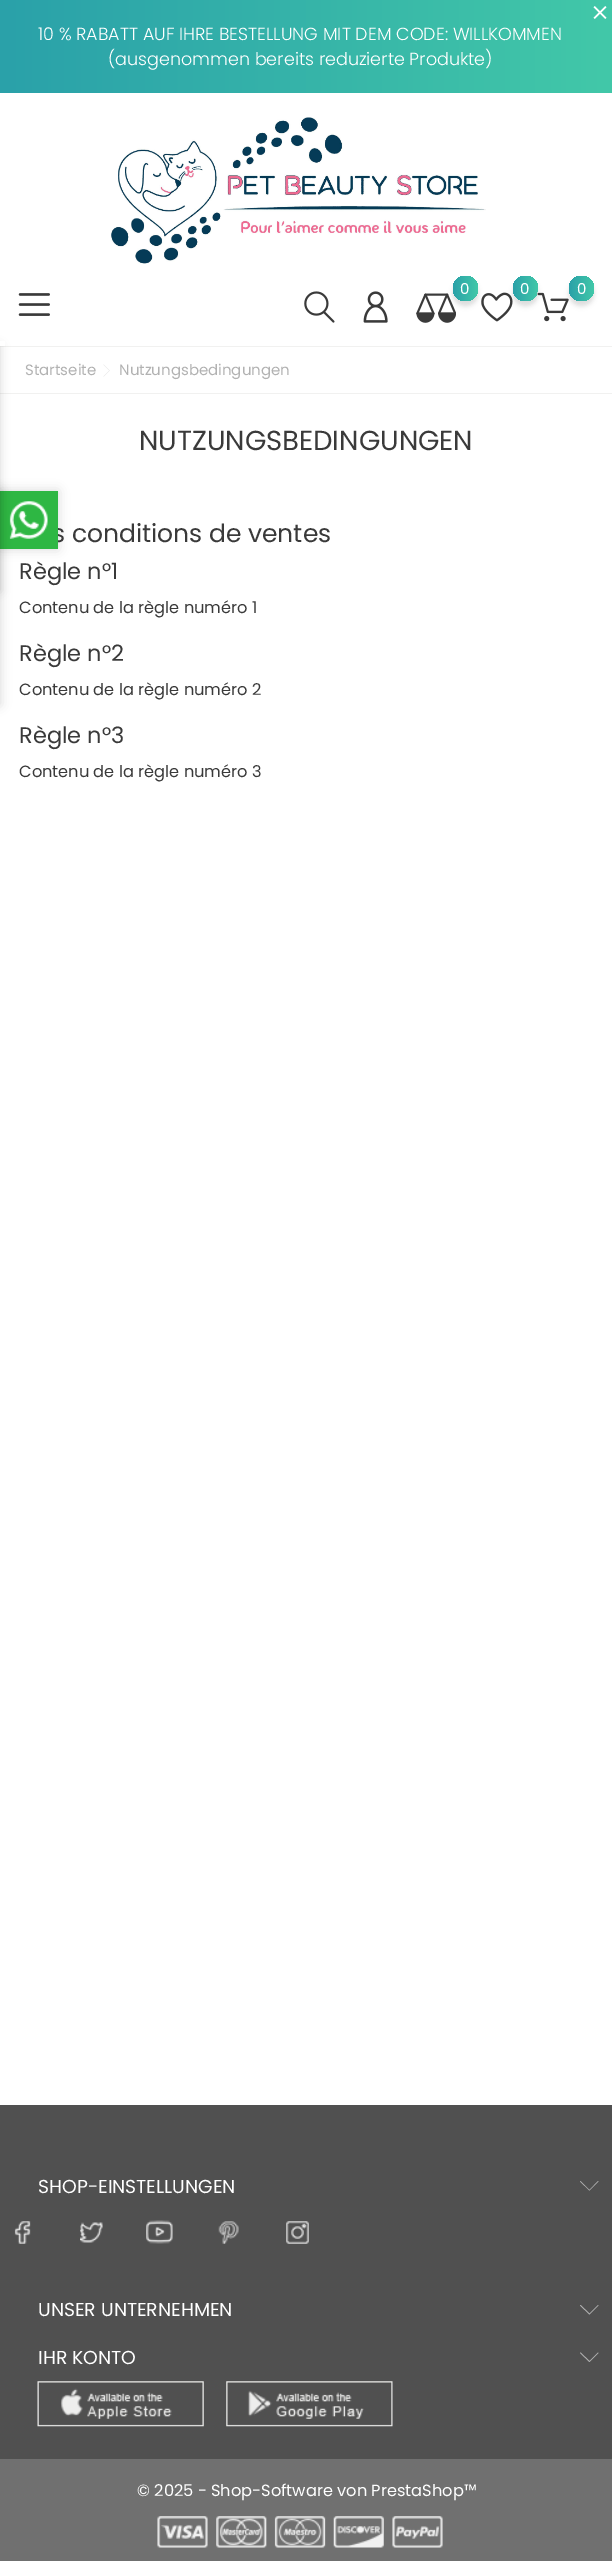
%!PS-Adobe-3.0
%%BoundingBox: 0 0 612 2561
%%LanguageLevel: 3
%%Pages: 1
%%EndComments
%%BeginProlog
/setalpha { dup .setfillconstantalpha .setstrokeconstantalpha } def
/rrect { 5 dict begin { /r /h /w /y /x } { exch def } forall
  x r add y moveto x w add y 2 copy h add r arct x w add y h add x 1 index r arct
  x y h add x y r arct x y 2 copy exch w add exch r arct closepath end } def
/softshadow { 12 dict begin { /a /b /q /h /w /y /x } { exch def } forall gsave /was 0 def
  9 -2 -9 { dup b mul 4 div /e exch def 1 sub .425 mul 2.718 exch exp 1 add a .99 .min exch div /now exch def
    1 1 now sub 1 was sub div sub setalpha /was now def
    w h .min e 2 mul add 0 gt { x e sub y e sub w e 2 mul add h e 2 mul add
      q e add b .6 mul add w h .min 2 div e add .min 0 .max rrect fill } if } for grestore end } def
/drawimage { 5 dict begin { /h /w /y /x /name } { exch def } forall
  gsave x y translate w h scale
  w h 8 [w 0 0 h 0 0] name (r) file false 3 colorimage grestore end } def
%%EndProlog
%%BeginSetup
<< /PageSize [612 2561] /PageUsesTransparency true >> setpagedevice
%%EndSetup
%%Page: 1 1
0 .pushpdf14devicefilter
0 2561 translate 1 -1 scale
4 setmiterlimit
1 setgray
0 0 612 2561 rectfill
gsave newpath 0 0 moveto 612 0 lineto 612 93 lineto 0 93 lineto closepath clip newpath
<< /ShadingType 2 /ColorSpace /DeviceRGB /Coords [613 46 0 46] /Extend [true true] /Function << /FunctionType 2 /Domain [0 1] /C0 [0.259 0.784 0.659] /C1 [0.165 0.631 0.663] /N 1 >> >> shfill grestore
(images/1.raw) 593 6 14 13 drawimage
(images/2.raw) 111 117 375 147 drawimage
(images/3.raw) 416 293 40 30 drawimage
0 setgray
453 281 25 25 12.5 2.5 0.14 softshadow
gsave newpath 465.5 288.5 12.5 0 360 arc closepath clip newpath
<< /ShadingType 2 /ColorSpace /DeviceRGB /Coords [478 289 453 289] /Extend [true true] /Function << /FunctionType 2 /Domain [0 1] /C0 [0.259 0.784 0.659] /C1 [0.165 0.631 0.663] /N 1 >> >> shfill grestore
(images/4.raw) 481 292 32 30 drawimage
513 281 25 25 12.5 2.5 0.14 softshadow
gsave newpath 525.5 288.5 12.5 0 360 arc closepath clip newpath
<< /ShadingType 2 /ColorSpace /DeviceRGB /Coords [538 289 513 289] /Extend [true true] /Function << /FunctionType 2 /Domain [0 1] /C0 [0.259 0.784 0.659] /C1 [0.165 0.631 0.663] /N 1 >> >> shfill grestore
(images/5.raw) 537 292 32 30 drawimage
569 281 25 25 12.5 2.5 0.14 softshadow
gsave newpath 581.5 288.5 12.5 0 360 arc closepath clip newpath
<< /ShadingType 2 /ColorSpace /DeviceRGB /Coords [594 289 569 289] /Extend [true true] /Function << /FunctionType 2 /Domain [0 1] /C0 [0.259 0.784 0.659] /C1 [0.165 0.631 0.663] /N 1 >> >> shfill grestore
(images/6.raw) 304 291 31 32 drawimage
(images/7.raw) 363 291 25 32 drawimage
(images/8.raw) 18 293 32 23 drawimage
0.945 0.945 0.941 setrgbcolor
0 346 612 1 rectfill
0 393 612 1 rectfill
(images/9.raw) 103 364 7 13 drawimage
0 setgray
0 491 58 58 0 5.5 0.15 softshadow
0.314 setgray
0 2105 612 354 rectfill
0.698 setgray
newpath 589.5 2190.5 moveto 598.5 2181.5 lineto 598 2181 lineto 589.5 2190 lineto 580.5 2181 lineto 580 2181.5 lineto closepath fill
(images/11.raw) 14 2221 17 23 drawimage
(images/12.raw) 80 2222 23 21 drawimage
(images/13.raw) 146 2220 27 24 drawimage
(images/14.raw) 218 2221 21 23 drawimage
(images/15.raw) 286 2221 23 23 drawimage
newpath 589.5 2314.5 moveto 598.5 2305.5 lineto 598 2305 lineto 589.5 2313.5 lineto 580.5 2305 lineto 580 2305.5 lineto closepath fill
newpath 589.5 2362 moveto 598.5 2353 lineto 598 2352.5 lineto 589.5 2361 lineto 580.5 2352.5 lineto 580 2353 lineto closepath fill
(images/16.raw) 37 2381 167 46 drawimage
(images/17.raw) 226 2381 167 46 drawimage
0.439 setgray
0 2459 612 102 rectfill
(images/18.raw) 157 2516 286 32 drawimage
/Poppins-Light [17.5 0 0 -17.5 0 0] selectfont
1 setgray
38 40 moveto (10 % RABATT AUF IHRE BESTELLUNG MIT DEM CODE: WILLKOMMEN) show
108 65 moveto (\(ausgenommen bereits reduzierte Produkte\)) show
/Poppins-Regular [15 0 0 -15 0 0] selectfont
460 294 moveto (0) show
520 294 moveto (0) show
577 294 moveto (0) show
0.698 setgray
25 375 moveto (Startseite) show
119 375 moveto (Nutzungsbedingungen) show
/Poppins-Regular [27.5 0 0 -27.5 0 0] selectfont
0.227 setgray
139 450 moveto (NUTZUNGSBEDINGUNGEN) show
/Poppins-Regular [25 0 0 -25 0 0] selectfont
52 542 moveto (s conditions de ventes) show
/Poppins-Regular [22.5 0 0 -22.5 0 0] selectfont
19 579 moveto (Règle n°1) show
/Poppins-Regular [16.25 0 0 -16.25 0 0] selectfont
19 613 moveto (Contenu de la règle numéro 1) show
/Poppins-Regular [22.5 0 0 -22.5 0 0] selectfont
19 661 moveto (Règle n°2) show
/Poppins-Regular [16.25 0 0 -16.25 0 0] selectfont
19 695 moveto (Contenu de la règle numéro 2) show
/Poppins-Regular [22.5 0 0 -22.5 0 0] selectfont
19 743 moveto (Règle n°3) show
/Poppins-Regular [16.25 0 0 -16.25 0 0] selectfont
19 777 moveto (Contenu de la règle numéro 3) show
0.18 0.718 0.263 setrgbcolor
0 491 58 58 rectfill
(images/10.raw) 9 501 39 38 drawimage
0 setgray
-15 346 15 245 0 5 0.16 softshadow
1 setgray
0 341 5 5 rectfill
0 setgray
-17 491 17 214 0 5.5 0.15 softshadow
/Poppins-Regular [18.75 0 0 -18.75 0 0] selectfont
1 setgray
38 2193 moveto (SHOP-EINSTELLUNGEN) show
38 2316 moveto (UNSER UNTERNEHMEN) show
38 2364 moveto (IHR KONTO) show
/Poppins-Regular [16.25 0 0 -16.25 0 0] selectfont
137 2496 moveto (© 2025 - Shop-Software von PrestaShop™) show
.poppdf14devicefilter showpage
%%EOF
